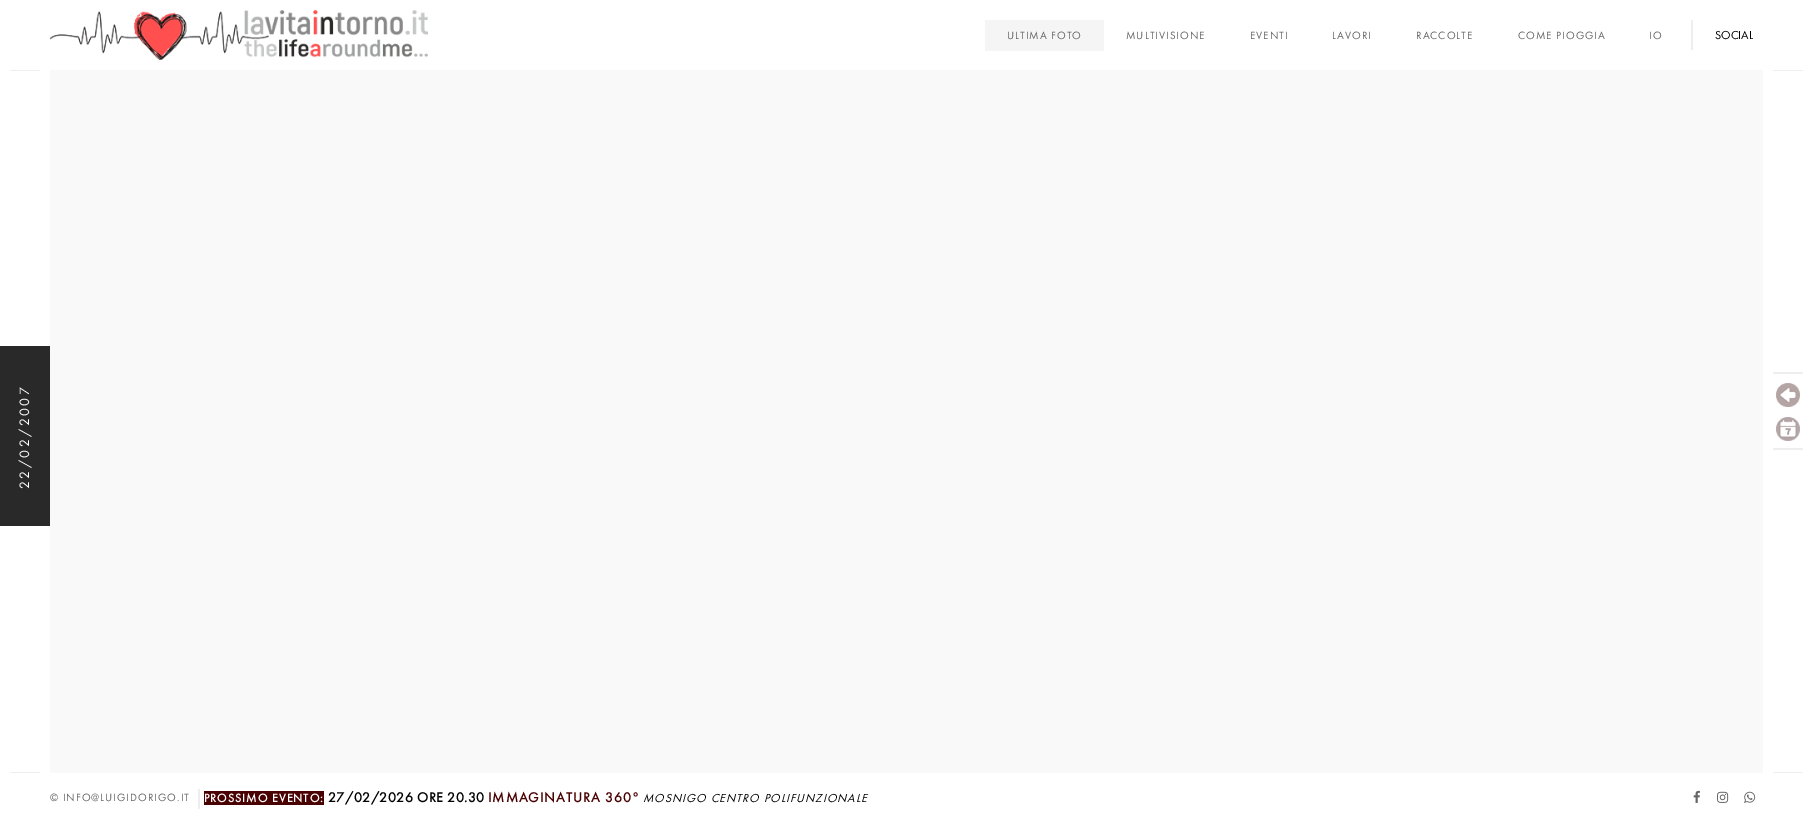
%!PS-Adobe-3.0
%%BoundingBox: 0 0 1813 823
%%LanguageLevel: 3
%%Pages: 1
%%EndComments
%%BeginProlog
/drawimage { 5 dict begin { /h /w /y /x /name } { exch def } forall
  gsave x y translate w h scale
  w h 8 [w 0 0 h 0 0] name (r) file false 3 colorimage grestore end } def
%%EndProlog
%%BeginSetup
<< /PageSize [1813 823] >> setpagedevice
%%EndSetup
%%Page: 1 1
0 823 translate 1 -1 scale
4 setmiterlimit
0.976 setgray
0 0 1813 823 rectfill
1 setgray
0 0 1813 70 rectfill
(images/1.raw) 50 10 378 50 drawimage
0.961 setgray
985 20 119 31 rectfill
0.933 setgray
1691 20 2 30 rectfill
1 setgray
0 70 50 703 rectfill
0.933 setgray
10 70 30 1 rectfill
10 772 30 1 rectfill
1 setgray
1763 70 50 703 rectfill
0.933 setgray
1773 70 30 1 rectfill
1773 772 30 1 rectfill
0.161 setgray
0 346 50 180 rectfill
0.933 setgray
1773 372 30 2 rectfill
(images/2.raw) 1776 383 24 24 drawimage
(images/3.raw) 1776 417 24 24 drawimage
1773 448 30 2 rectfill
1 setgray
0 773 1813 50 rectfill
0.933 setgray
198 789 2 20 rectfill
0.29 0.004 0.008 setrgbcolor
204 791 120 14 rectfill
(images/4.raw) 1693 790 7 13 drawimage
(images/5.raw) 1717 791 12 12 drawimage
(images/6.raw) 1744 791 12 12 drawimage
/FuturaPT-Regular [11 0 0 -11 0 0] selectfont
0.4 setgray
1007 39 moveto 1 0 (ULTIMA FOTO) ashow
1126 39 moveto 1 0 (MULTIVISIONE) ashow
1250 39 moveto 1 0 (EVENTI) ashow
1332 39 moveto 1 0 (LAVORI) ashow
1416 39 moveto 1 0 (RACCOLTE) ashow
1518 39 moveto 1 0 (COME PIOGGIA) ashow
1649 39 moveto 1 0 (IO) ashow
/FuturaPT-Regular [12 0 0 -12 0 0] selectfont
0 setgray
1715 39 moveto (SOCIAL) show
/FuturaPT-Regular [14 0 0 -14 0 0] selectfont
1 setgray
gsave 29 489 translate -90 rotate 0 0 moveto 2.4 0 (22/02/2007) ashow grestore
/FuturaPT-Regular [11 0 0 -11 0 0] selectfont
0.4 setgray
50 801 moveto 1 0 (© INFO@LUIGIDORIGO.IT) ashow
/FuturaPT-Bold [12 0 0 -12 0 0] selectfont
1 setgray
204 802 moveto 1 0 (PROSSIMO EVENTO:) ashow
/FuturaPT-Bold [14 0 0 -14 0 0] selectfont
0 setgray
328 802 moveto 0.5 0 (27/02/2026 ORE 20.30) ashow
0.29 0.004 0.008 setrgbcolor
488 802 moveto 1 0 (IMMAGINATURA 360°) ashow
/FuturaPT-Italic [12 0 0 -12 0 0] selectfont
0 setgray
643 802 moveto 1 0 (MOSNIGO CENTRO POLIFUNZIONALE) ashow
showpage
%%EOF
